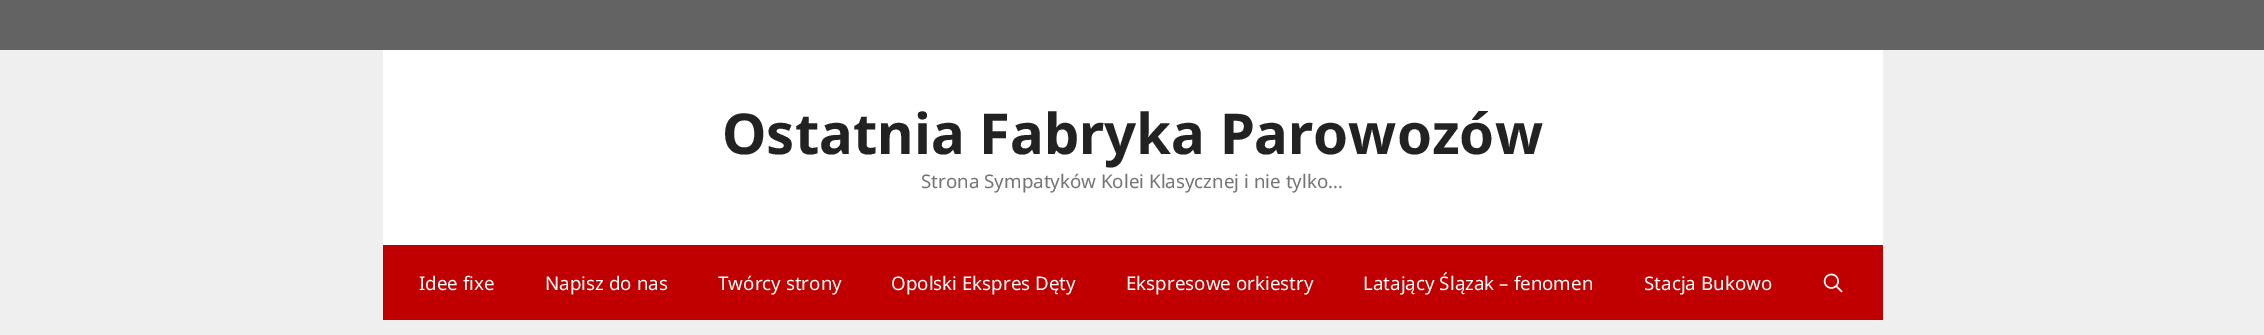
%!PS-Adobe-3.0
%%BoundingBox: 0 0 2264 335
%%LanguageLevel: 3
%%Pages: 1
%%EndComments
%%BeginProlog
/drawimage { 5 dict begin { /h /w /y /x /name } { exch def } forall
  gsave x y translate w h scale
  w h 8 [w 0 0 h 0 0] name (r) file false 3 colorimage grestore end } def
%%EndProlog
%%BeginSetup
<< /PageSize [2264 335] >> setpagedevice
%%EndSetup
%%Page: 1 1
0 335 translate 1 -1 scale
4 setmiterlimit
0.937 setgray
0 0 2264 335 rectfill
0.388 setgray
0 0 2264 50 rectfill
1 setgray
383 50 1500 195 rectfill
0.753 0 0 setrgbcolor
383 245 1500 75 rectfill
(images/1.raw) 1823 273 20 20 drawimage
/NotoSans-Bold [56.25 0 0 -56.25 0 0] selectfont
0.133 setgray
722 154 moveto (Ostatnia Fabryka Parowozów) show
/NotoSans-Regular [18.75 0 0 -18.75 0 0] selectfont
0.459 setgray
921 188 moveto (Strona Sympatyków Kolei Klasycznej i nie tylko…) show
1 setgray
419 290 moveto (Idee fixe) show
545 290 moveto (Napisz do nas) show
718 290 moveto (Twórcy strony) show
891 290 moveto (Opolski Ekspres Dęty) show
1126 290 moveto (Ekspresowe orkiestry) show
1363 290 moveto (Latający Ślązak – fenomen) show
1644 290 moveto (Stacja Bukowo) show
showpage
%%EOF
